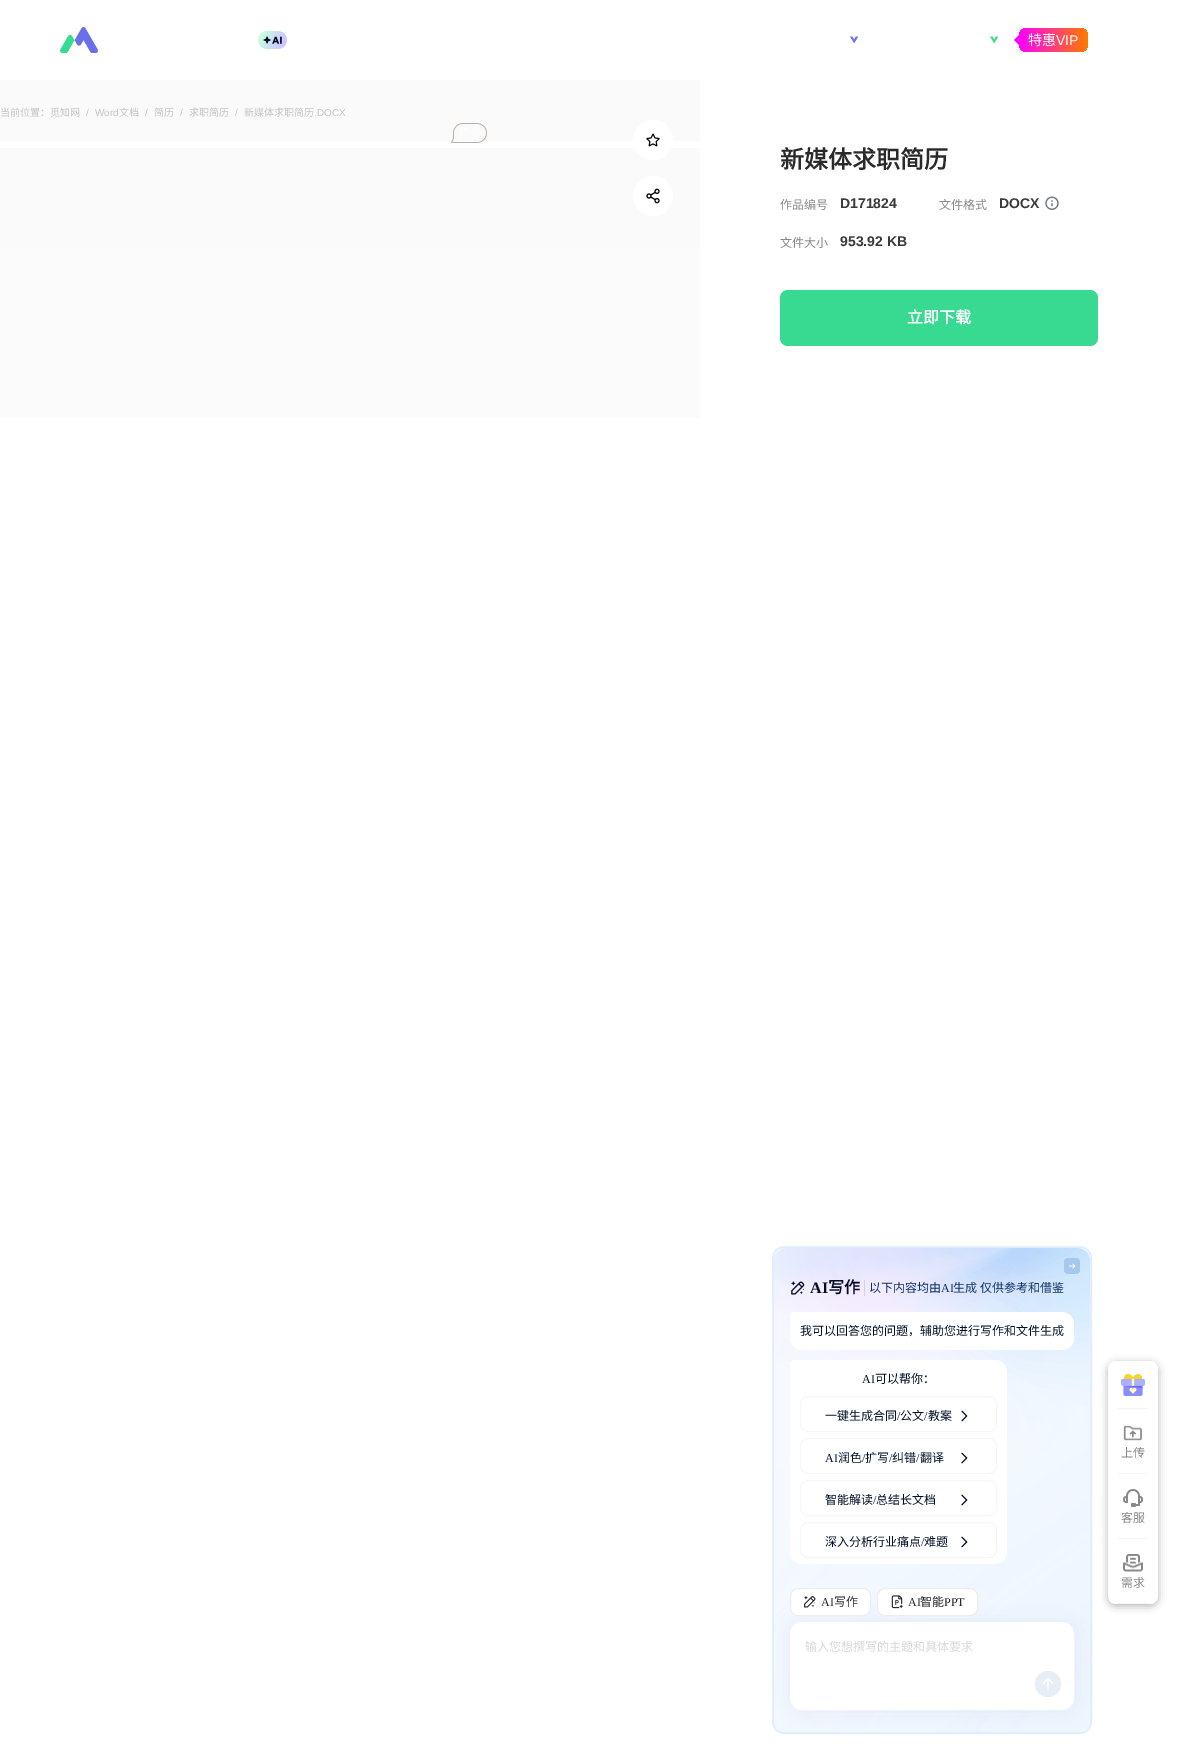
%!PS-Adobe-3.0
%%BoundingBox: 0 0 1178 1754
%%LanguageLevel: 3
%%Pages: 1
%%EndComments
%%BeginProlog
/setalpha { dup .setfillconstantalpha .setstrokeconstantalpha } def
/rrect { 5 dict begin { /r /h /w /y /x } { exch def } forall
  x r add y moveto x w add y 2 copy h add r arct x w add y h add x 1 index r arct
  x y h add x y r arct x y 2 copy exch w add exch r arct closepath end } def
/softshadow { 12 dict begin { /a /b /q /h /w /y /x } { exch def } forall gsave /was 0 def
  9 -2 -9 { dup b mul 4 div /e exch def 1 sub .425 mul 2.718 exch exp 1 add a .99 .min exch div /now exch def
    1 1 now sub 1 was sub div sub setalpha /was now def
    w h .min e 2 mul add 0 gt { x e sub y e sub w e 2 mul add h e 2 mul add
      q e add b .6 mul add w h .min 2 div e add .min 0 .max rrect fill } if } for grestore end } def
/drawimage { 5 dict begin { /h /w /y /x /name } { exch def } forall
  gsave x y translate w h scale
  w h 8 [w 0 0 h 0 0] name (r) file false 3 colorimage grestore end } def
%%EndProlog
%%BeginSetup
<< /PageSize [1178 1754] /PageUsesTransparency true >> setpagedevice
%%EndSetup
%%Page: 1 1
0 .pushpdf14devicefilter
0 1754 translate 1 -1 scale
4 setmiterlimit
1 setgray
0 0 1178 1754 rectfill
(images/1.raw) 60 27 39 26 drawimage
(images/2.raw) 258 31 29 18 drawimage
gsave newpath 0 80 moveto 700 80 lineto 700 418 lineto 0 418 lineto closepath clip newpath
<< /ShadingType 2 /ColorSpace /DeviceRGB /Coords [350 80 350 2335] /Extend [true true] /Function << /FunctionType 3 /Domain [0 1] /Functions [<< /FunctionType 2 /Domain [0 1] /C0 [0.98 0.98 0.98] /C1 [1 1 1] /N 1 >> << /FunctionType 2 /Domain [0 1] /C0 [1 1 1] /C1 [1 1 1] /N 1 >>] /Bounds [0.3] /Encode [0 1 0 1] >> >> shfill grestore
0 141 700 7 rectfill
(images/3.raw) 451 123 36 20 drawimage
(images/4.raw) 849 36 10 8 drawimage
(images/5.raw) 989 36 10 8 drawimage
0.984 0 1 setrgbcolor
newpath 1019 35 moveto 1019 45 lineto 1014 40 lineto closepath fill
gsave 1019 28 69 24 8 rrect clip newpath
<< /ShadingType 2 /ColorSpace /DeviceRGB /Coords [1018 40 1088 40] /Extend [true true] /Function << /FunctionType 3 /Domain [0 1] /Functions [<< /FunctionType 2 /Domain [0 1] /C0 [0.984 0 1] /C1 [1 0.475 0] /N 1 >> << /FunctionType 2 /Domain [0 1] /C0 [1 0.475 0] /C1 [1 0.475 0] /N 1 >>] /Bounds [0.98] /Encode [0 1 0 1] >> >> shfill grestore
1 setgray
newpath 653 140 20 0 360 arc closepath fill
(images/6.raw) 646 133 14 14 drawimage
newpath 653 196 20 0 360 arc closepath fill
(images/7.raw) 646 188 14 16 drawimage
0.965 0.976 1 setrgbcolor
773 1247 318 486 11 rrect gsave fill grestore
0.886 0.929 1 setrgbcolor
2 setlinewidth
stroke
(images/8.raw) 774 1248 316 484 drawimage
0.647 0.784 0.925 setrgbcolor
1064 1258 16 16 4 rrect fill
(images/9.raw) 1068 1263 8 6 drawimage
(images/10.raw) 791 1281 14 14 drawimage
0.839 0.812 0.929 setrgbcolor
864 1280 1 16 rectfill
1 setgray
newpath 794 1312 moveto 1062 1312 lineto 1068.5 1312 1074 1317.5 1074 1324 curveto 1074 1338 lineto 1074 1344.5 1068.5 1350 1062 1350 curveto 802 1350 lineto 795.5 1350 790 1344.5 790 1338 curveto 790 1316 lineto 790 1314 792 1312 794 1312 curveto closepath fill
newpath 794 1360 moveto 995 1360 lineto 1001.5 1360 1007 1365.5 1007 1372 curveto 1007 1552 lineto 1007 1558.5 1001.5 1564 995 1564 curveto 802 1564 lineto 795.5 1564 790 1558.5 790 1552 curveto 790 1364 lineto 790 1362 792 1360 794 1360 curveto closepath fill
0.965 setgray
1 setlinewidth
800.5 1396.5 196 35 7.5 rrect stroke
(images/11.raw) 961 1410 7 12 drawimage
800.5 1438.5 196 35 7.5 rrect stroke
(images/11.raw) 961 1452 7 12 drawimage
800.5 1480.5 196 35 7.5 rrect stroke
(images/11.raw) 961 1494 7 12 drawimage
800.5 1522.5 196 35 7.5 rrect stroke
(images/11.raw) 961 1536 7 12 drawimage
0.063 0.137 0.408 setrgbcolor
790 1622 284 88 12 10 0.06 softshadow
1 setgray
790.5 1588.5 80 27 7.5 rrect gsave fill grestore
0.929 setgray
stroke
(images/12.raw) 804 1596 12 12 drawimage
1 setgray
877.5 1588.5 100 27 7.5 rrect gsave fill grestore
0.929 setgray
stroke
(images/13.raw) 891 1595 12 14 drawimage
1 setgray
790.5 1622.5 283 87 11.5 rrect gsave fill grestore
stroke
0.902 0.937 0.961 setrgbcolor
newpath 1048 1684 13 0 360 arc closepath fill
(images/14.raw) 1042 1678 12 12 drawimage
(images/15.raw) 1045 196 14 14 drawimage
0.216 0.855 0.565 setrgbcolor
780 290 318 56 8 rrect fill
0 setgray
1108 1363 50 243 8 4 0.15 softshadow
1108 1363 50 243 8 4 0.15 softshadow
1 setgray
1108 1361 50 243 8 rrect fill
(images/16.raw) 1121 1374 24 22 drawimage
0.957 setgray
1118 1408 30 1 rectfill
(images/17.raw) 1123 1425 19 16 drawimage
1118 1473 30 1 rectfill
(images/18.raw) 1123 1489 20 18 drawimage
1118 1538 30 1 rectfill
(images/19.raw) 1123 1554 20 18 drawimage
1118 1603 30 1 rectfill
/NotoSansCJKSC-Regular [14 0 0 -14 0 0] selectfont
1 setgray
1028 45 moveto (特惠) show
/LiberationSans-Regular [14 0 0 -14 0 0] selectfont
1056 45 moveto (VIP) show
/NotoSansCJKSC-Regular [10 0 0 -10 0 0] selectfont
0.765 setgray
0 116 moveto (当前位置：觅知网) show
/LiberationSans-Regular [10 0 0 -10 0 0] selectfont
86 116 moveto (/) show
95 116 moveto (Word) show
/NotoSansCJKSC-Regular [10 0 0 -10 0 0] selectfont
119 116 moveto (文档) show
/LiberationSans-Regular [10 0 0 -10 0 0] selectfont
145 116 moveto (/) show
/NotoSansCJKSC-Regular [10 0 0 -10 0 0] selectfont
154 116 moveto (简历) show
/LiberationSans-Regular [10 0 0 -10 0 0] selectfont
180 116 moveto (/) show
/NotoSansCJKSC-Regular [10 0 0 -10 0 0] selectfont
189 116 moveto (求职简历) show
/LiberationSans-Regular [10 0 0 -10 0 0] selectfont
235 116 moveto (/) show
/NotoSansCJKSC-Regular [10 0 0 -10 0 0] selectfont
244 116 moveto (新媒体求职简历) show
/LiberationSans-Regular [10 0 0 -10 0 0] selectfont
314 116 moveto (.DOCX) show
/LiberationSerif-Bold [16 0 0 -16 0 0] selectfont
0.024 0.039 0.149 setrgbcolor
810 1293 moveto (AI) show
/NotoSansCJKSC-Bold [16 0 0 -16 0 0] selectfont
828 1293 moveto (写作) show
/NotoSansCJKSC-Regular [12 0 0 -12 0 0] selectfont
0.055 0.18 0.392 setrgbcolor
869 1292 moveto (以下内容均由) show
/LiberationSerif-Regular [12 0 0 -12 0 0] selectfont
941 1292 moveto (AI) show
/NotoSansCJKSC-Regular [12 0 0 -12 0 0] selectfont
953 1292 moveto (生成 仅供参考和借鉴) show
0.012 0.067 0.161 setrgbcolor
800 1335 moveto (我可以回答您的问题，辅助您进行写作和文件生成) show
/LiberationSerif-Regular [12 0 0 -12 0 0] selectfont
862 1383 moveto (AI) show
/NotoSansCJKSC-Regular [12 0 0 -12 0 0] selectfont
875 1383 moveto (可以帮你：) show
825 1420 moveto (一键生成合同) show
/LiberationSerif-Regular [12 0 0 -12 0 0] selectfont
897 1420 moveto (/) show
/NotoSansCJKSC-Regular [12 0 0 -12 0 0] selectfont
900 1420 moveto (公文) show
/LiberationSerif-Regular [12 0 0 -12 0 0] selectfont
924 1420 moveto (/) show
/NotoSansCJKSC-Regular [12 0 0 -12 0 0] selectfont
928 1420 moveto (教案) show
/LiberationSerif-Regular [12 0 0 -12 0 0] selectfont
825 1462 moveto (AI) show
/NotoSansCJKSC-Regular [12 0 0 -12 0 0] selectfont
838 1462 moveto (润色) show
/LiberationSerif-Regular [12 0 0 -12 0 0] selectfont
862 1462 moveto (/) show
/NotoSansCJKSC-Regular [12 0 0 -12 0 0] selectfont
865 1462 moveto (扩写) show
/LiberationSerif-Regular [12 0 0 -12 0 0] selectfont
889 1462 moveto (/) show
/NotoSansCJKSC-Regular [12 0 0 -12 0 0] selectfont
892 1462 moveto (纠错) show
/LiberationSerif-Regular [12 0 0 -12 0 0] selectfont
916 1462 moveto (/) show
/NotoSansCJKSC-Regular [12 0 0 -12 0 0] selectfont
920 1462 moveto (翻译) show
825 1504 moveto (智能解读) show
/LiberationSerif-Regular [12 0 0 -12 0 0] selectfont
873 1504 moveto (/) show
/NotoSansCJKSC-Regular [12 0 0 -12 0 0] selectfont
876 1504 moveto (总结长文档) show
825 1546 moveto (深入分析行业痛点) show
/LiberationSerif-Regular [12 0 0 -12 0 0] selectfont
921 1546 moveto (/) show
/NotoSansCJKSC-Regular [12 0 0 -12 0 0] selectfont
924 1546 moveto (难题) show
/LiberationSerif-Regular [12 0 0 -12 0 0] selectfont
0.165 setgray
821 1606 moveto (AI) show
/NotoSansCJKSC-Regular [12 0 0 -12 0 0] selectfont
834 1606 moveto (写作) show
/LiberationSerif-Regular [12 0 0 -12 0 0] selectfont
908 1606 moveto (AI) show
/NotoSansCJKSC-Regular [12 0 0 -12 0 0] selectfont
920 1606 moveto (智能) show
/LiberationSerif-Regular [12 0 0 -12 0 0] selectfont
944 1606 moveto (PPT) show
/NotoSansCJKSC-Regular [12 0 0 -12 0 0] selectfont
0.843 setgray
805 1651 moveto (输入您想撰写的主题和具体要求) show
/NotoSansCJKSC-Bold [24 0 0 -24 0 0] selectfont
0.165 setgray
780 168 moveto (新媒体求职简历) show
/NotoSansCJKSC-Regular [12 0 0 -12 0 0] selectfont
0.533 setgray
780 209 moveto (作品编号) show
/LiberationSans-Bold [14 0 0 -14 0 0] selectfont
0.227 setgray
840 208 moveto (D171824) show
/NotoSansCJKSC-Regular [12 0 0 -12 0 0] selectfont
0.533 setgray
939 209 moveto (文件格式) show
/LiberationSans-Bold [14 0 0 -14 0 0] selectfont
0.227 setgray
999 208 moveto (DOCX) show
/NotoSansCJKSC-Regular [12 0 0 -12 0 0] selectfont
0.533 setgray
780 247 moveto (文件大小) show
/LiberationSans-Bold [14 0 0 -14 0 0] selectfont
0.227 setgray
840 246 moveto (953.92 KB) show
/NotoSansCJKSC-Bold [16 0 0 -16 0 0] selectfont
1 setgray
907 323 moveto (立即下载) show
/NotoSansCJKSC-Regular [12 0 0 -12 0 0] selectfont
0.533 setgray
1121 1457 moveto (上传) show
1121 1522 moveto (客服) show
1121 1587 moveto (需求) show
.poppdf14devicefilter showpage
%%EOF
